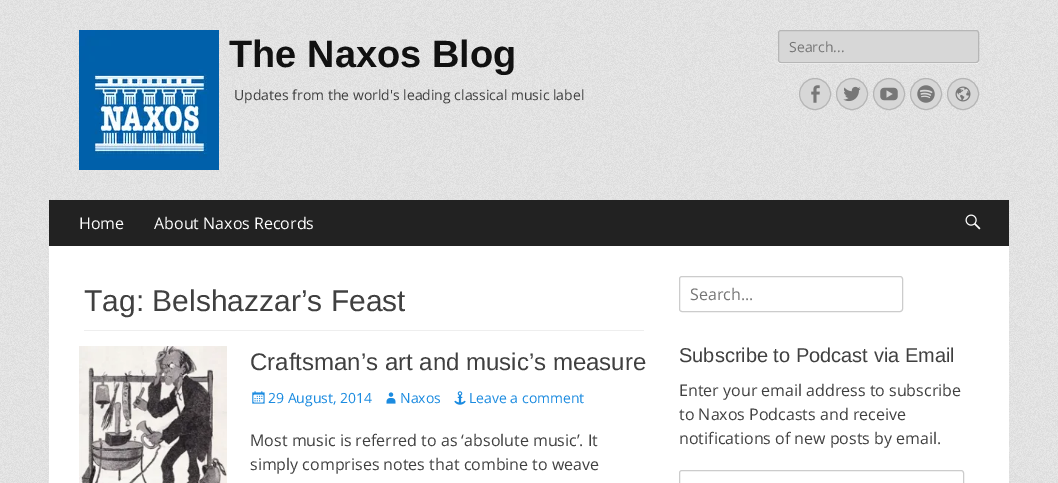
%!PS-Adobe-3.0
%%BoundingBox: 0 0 1058 483
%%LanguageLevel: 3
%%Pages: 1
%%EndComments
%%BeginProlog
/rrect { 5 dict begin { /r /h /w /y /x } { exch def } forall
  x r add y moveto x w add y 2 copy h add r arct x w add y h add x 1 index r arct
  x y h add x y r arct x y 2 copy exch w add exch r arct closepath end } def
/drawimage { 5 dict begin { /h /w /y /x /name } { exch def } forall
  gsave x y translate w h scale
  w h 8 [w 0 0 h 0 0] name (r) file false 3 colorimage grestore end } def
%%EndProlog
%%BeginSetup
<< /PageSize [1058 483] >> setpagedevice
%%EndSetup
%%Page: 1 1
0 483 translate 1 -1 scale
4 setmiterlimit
1 setgray
0 0 1058 483 rectfill
(images/1.raw) 0 0 1058 483 drawimage
(images/2.raw) 79 30 140 140 drawimage
newpath 778 60 moveto 778 62 779 64 781 64 curveto 976 64 lineto 978 64 979 62 979 60 curveto 979 62 978 63 976 63 curveto 780 63 lineto 779 62 lineto closepath fill
0.843 setgray
778.5 30.5 200 32 2.5 rrect gsave fill grestore
0.714 setgray
stroke
0.843 setgray
newpath 815 94 15.5 0 360 arc closepath gsave fill grestore
0.714 setgray
stroke
(images/3.raw) 811 85 9 18 drawimage
0.843 setgray
newpath 852 94 15.5 0 360 arc closepath gsave fill grestore
0.714 setgray
stroke
(images/4.raw) 843 86 18 16 drawimage
0.843 setgray
newpath 889 94 15.5 0 360 arc closepath gsave fill grestore
0.714 setgray
stroke
(images/5.raw) 880 87 18 14 drawimage
0.843 setgray
newpath 926 94 15.5 0 360 arc closepath gsave fill grestore
0.714 setgray
stroke
(images/6.raw) 917 85 18 18 drawimage
0.843 setgray
newpath 963 94 15.5 0 360 arc closepath gsave fill grestore
0.714 setgray
stroke
(images/7.raw) 955 86 16 16 drawimage
0.133 setgray
49 200 960 46 rectfill
(images/8.raw) 965 214 16 16 drawimage
1 setgray
49 246 960 237 rectfill
0.933 setgray
84 330 560 1 rectfill
(images/9.raw) 79 346 148 137 drawimage
(images/10.raw) 252 391 13 13 drawimage
(images/11.raw) 386 392 10 12 drawimage
(images/12.raw) 454 391 12 14 drawimage
0.8 setgray
679.5 276.5 223 35 2.5 rrect stroke
679.5 470.5 284 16 2.5 rrect stroke
/LiberationSans-Bold [38 0 0 -38 0 0] selectfont
0.067 setgray
229 67 moveto (The Naxos Blog) show
/OpenSans-Regular [14 0 0 -14 0 0] selectfont
0.251 setgray
234 100 moveto (Updates from the world's leading classical music label) show
0.459 setgray
789 52 moveto (Search...) show
/OpenSans-Regular [16 0 0 -16 0 0] selectfont
1 setgray
79 229 moveto (Home) show
154 229 moveto (About Naxos Records) show
/LiberationSans-Regular [30 0 0 -30 0 0] selectfont
0.251 setgray
84 311 moveto (Tag: Belshazzar’s Feast) show
/LiberationSans-Regular [24 0 0 -24 0 0] selectfont
250 370 moveto (Craftsman’s art and music’s measure) show
/OpenSans-Regular [14 0 0 -14 0 0] selectfont
0.106 0.545 0.878 setrgbcolor
268 403 moveto (29 August, 2014) show
400 403 moveto (Naxos) show
469 403 moveto (Leave a comment) show
/OpenSans-Regular [16 0 0 -16 0 0] selectfont
0.251 setgray
250 446 moveto (Most music is referred to as ‘absolute music’. It) show
250 470 moveto (simply comprises notes that combine to weave) show
0.459 setgray
690 300 moveto (Search...) show
/LiberationSans-Regular [20 0 0 -20 0 0] selectfont
0.251 setgray
679 362 moveto (Subscribe to Podcast via Email) show
/OpenSans-Regular [16 0 0 -16 0 0] selectfont
679 396 moveto (Enter your email address to subscribe) show
679 420 moveto (to Naxos Podcasts and receive) show
679 444 moveto (notifications of new posts by email.) show
showpage
%%EOF
